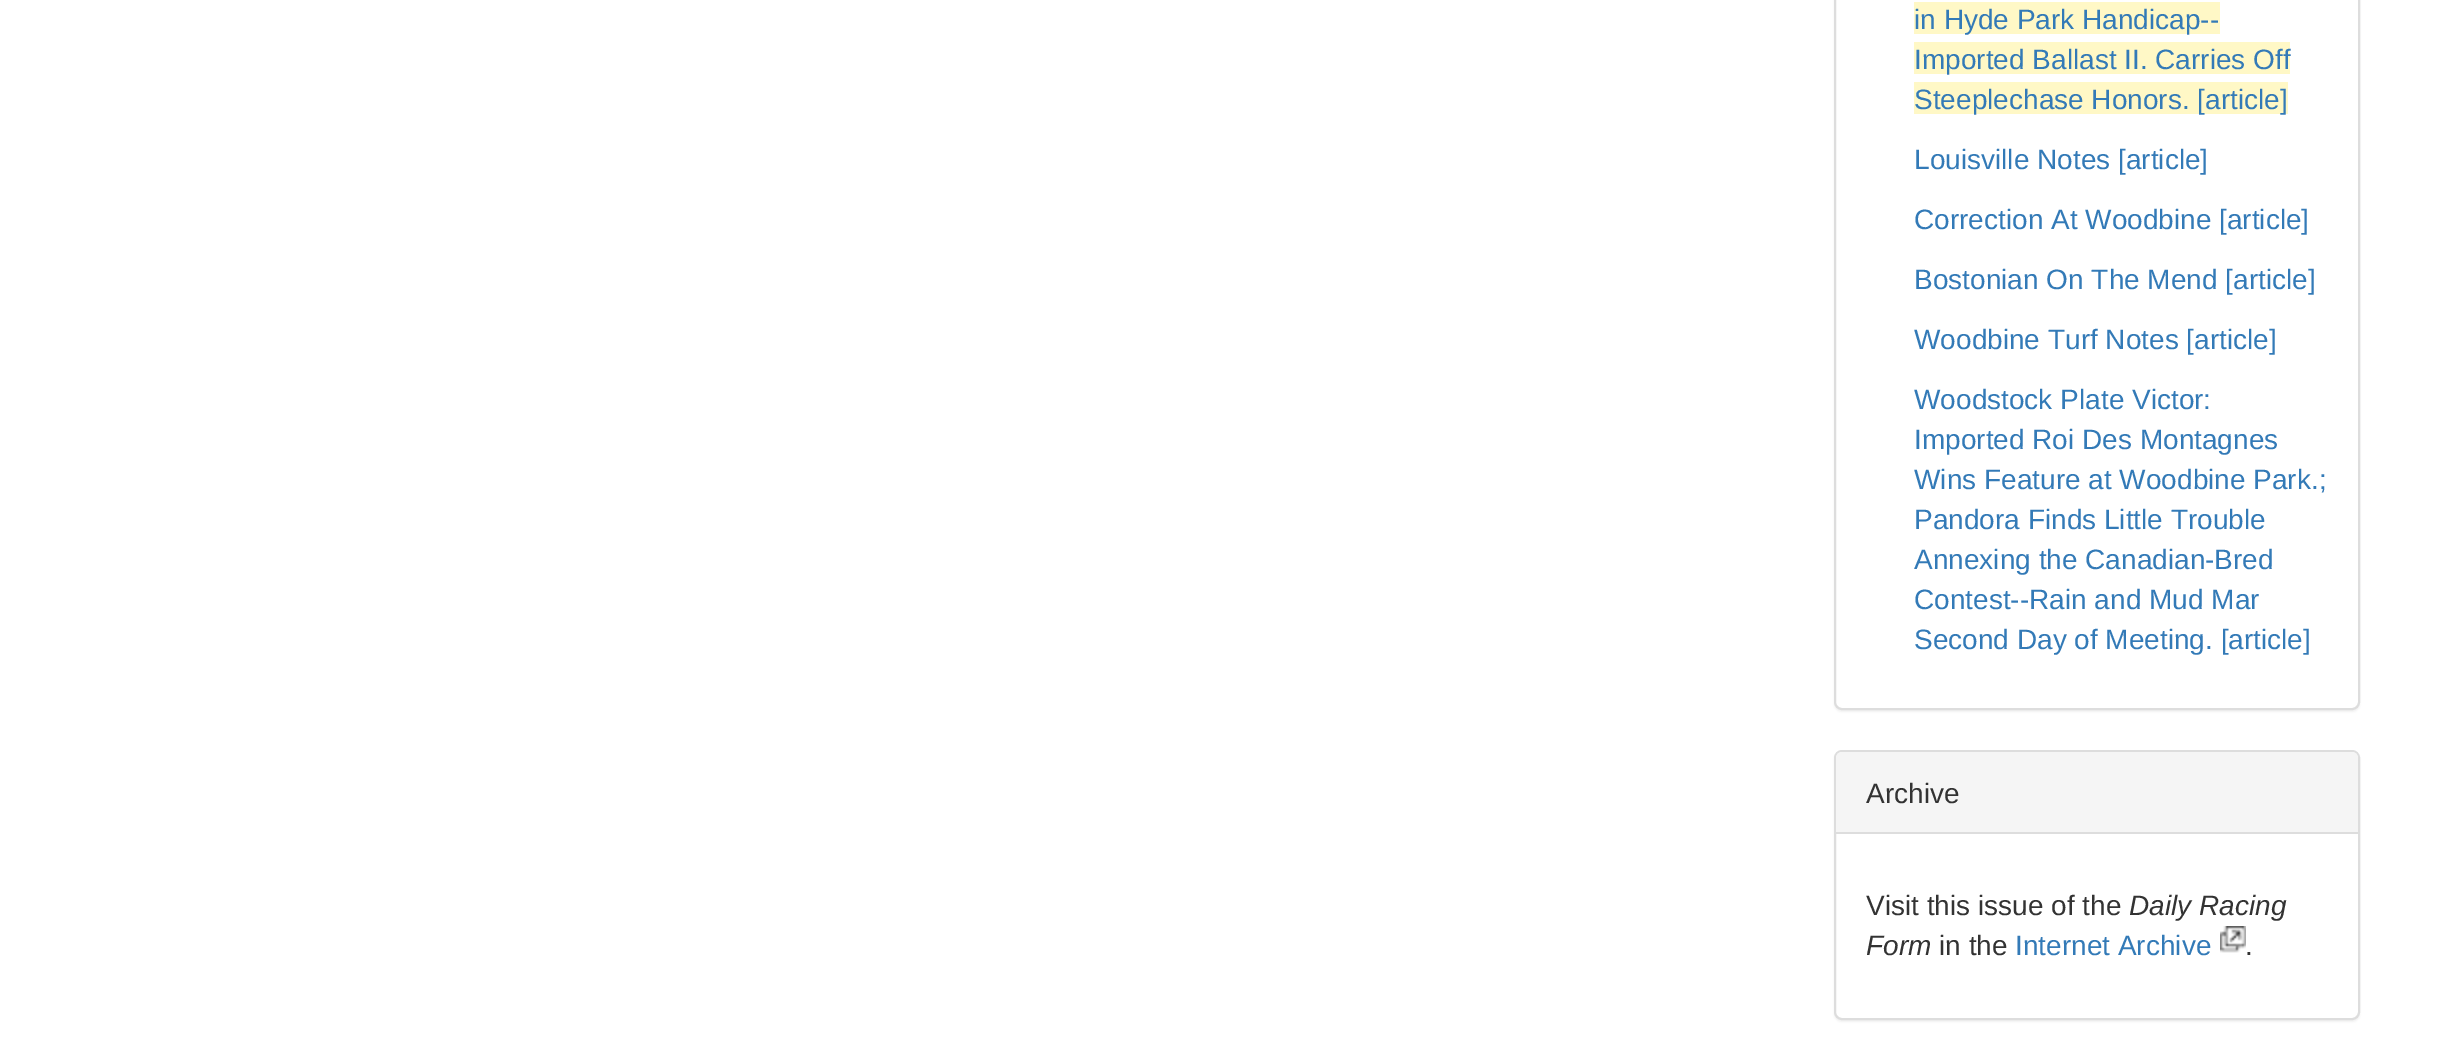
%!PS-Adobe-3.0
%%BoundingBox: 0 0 2438 1041
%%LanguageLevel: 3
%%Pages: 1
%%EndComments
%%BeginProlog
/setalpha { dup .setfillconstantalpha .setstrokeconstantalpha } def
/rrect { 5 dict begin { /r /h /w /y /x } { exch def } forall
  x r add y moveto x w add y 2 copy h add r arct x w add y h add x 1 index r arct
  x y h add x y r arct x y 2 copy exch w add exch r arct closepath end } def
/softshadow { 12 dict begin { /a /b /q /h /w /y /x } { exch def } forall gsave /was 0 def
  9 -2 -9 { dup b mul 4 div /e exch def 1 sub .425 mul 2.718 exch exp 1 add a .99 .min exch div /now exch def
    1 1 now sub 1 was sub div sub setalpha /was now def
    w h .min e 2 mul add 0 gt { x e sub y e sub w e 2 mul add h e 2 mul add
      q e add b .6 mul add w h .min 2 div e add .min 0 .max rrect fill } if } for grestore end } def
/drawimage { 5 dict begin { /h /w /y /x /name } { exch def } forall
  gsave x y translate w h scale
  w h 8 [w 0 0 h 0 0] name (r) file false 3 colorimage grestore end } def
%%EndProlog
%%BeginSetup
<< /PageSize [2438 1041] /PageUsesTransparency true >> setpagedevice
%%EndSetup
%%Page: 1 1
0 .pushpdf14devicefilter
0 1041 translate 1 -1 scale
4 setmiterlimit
1 setgray
0 0 2438 1041 rectfill
0 setgray
1834 -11 526 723 8 1 0.05 softshadow
1 setgray
1835 -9 524 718 7 rrect gsave fill grestore
0.867 setgray
2 setlinewidth
stroke
1 0.973 0.776 setrgbcolor
1914 2 306 32 rectfill
1914 42 376 32 rectfill
1914 82 374 32 rectfill
0 setgray
1834 752 526 270 8 1 0.05 softshadow
1 setgray
1835 751 524 268 7 rrect gsave fill grestore
0.867 setgray
stroke
0.961 setgray
newpath 1842 752 moveto 2352 752 lineto 2355.5 752 2358 754.5 2358 758 curveto 2358 834 lineto 1836 834 lineto 1836 758 lineto 1836 754.5 1838.5 752 1842 752 curveto closepath fill
0.867 setgray
1836 832 522 2 rectfill
(images/1.raw) 2220 926 26 27 drawimage
/LiberationSans-Regular [28 0 0 -28 0 0] selectfont
0.2 0.478 0.718 setrgbcolor
1914 29 moveto (in Hyde Park Handicap--) show
1914 69 moveto (Imported Ballast II. Carries Off) show
1914 109 moveto (Steeplechase Honors. [article]) show
1914 169 moveto (Louisville Notes [article]) show
1914 229 moveto (Correction At Woodbine [article]) show
1914 289 moveto (Bostonian On The Mend [article]) show
1914 349 moveto (Woodbine Turf Notes [article]) show
1914 409 moveto (Woodstock Plate Victor:) show
1914 449 moveto (Imported Roi Des Montagnes) show
1914 489 moveto (Wins Feature at Woodbine Park.;) show
1914 529 moveto (Pandora Finds Little Trouble) show
1914 569 moveto (Annexing the Canadian-Bred) show
1914 609 moveto (Contest--Rain and Mud Mar) show
1914 649 moveto (Second Day of Meeting. [article]) show
0.2 setgray
1866 803 moveto (Archive) show
1866 915 moveto (Visit this issue of the) show
/LiberationSans-Italic [28 0 0 -28 0 0] selectfont
2129 915 moveto (Daily Racing) show
1866 955 moveto (Form) show
/LiberationSans-Regular [28 0 0 -28 0 0] selectfont
1939 955 moveto (in the) show
0.2 0.478 0.718 setrgbcolor
2015 955 moveto (Internet Archive) show
0.2 setgray
2245 955 moveto (.) show
.poppdf14devicefilter showpage
%%EOF
